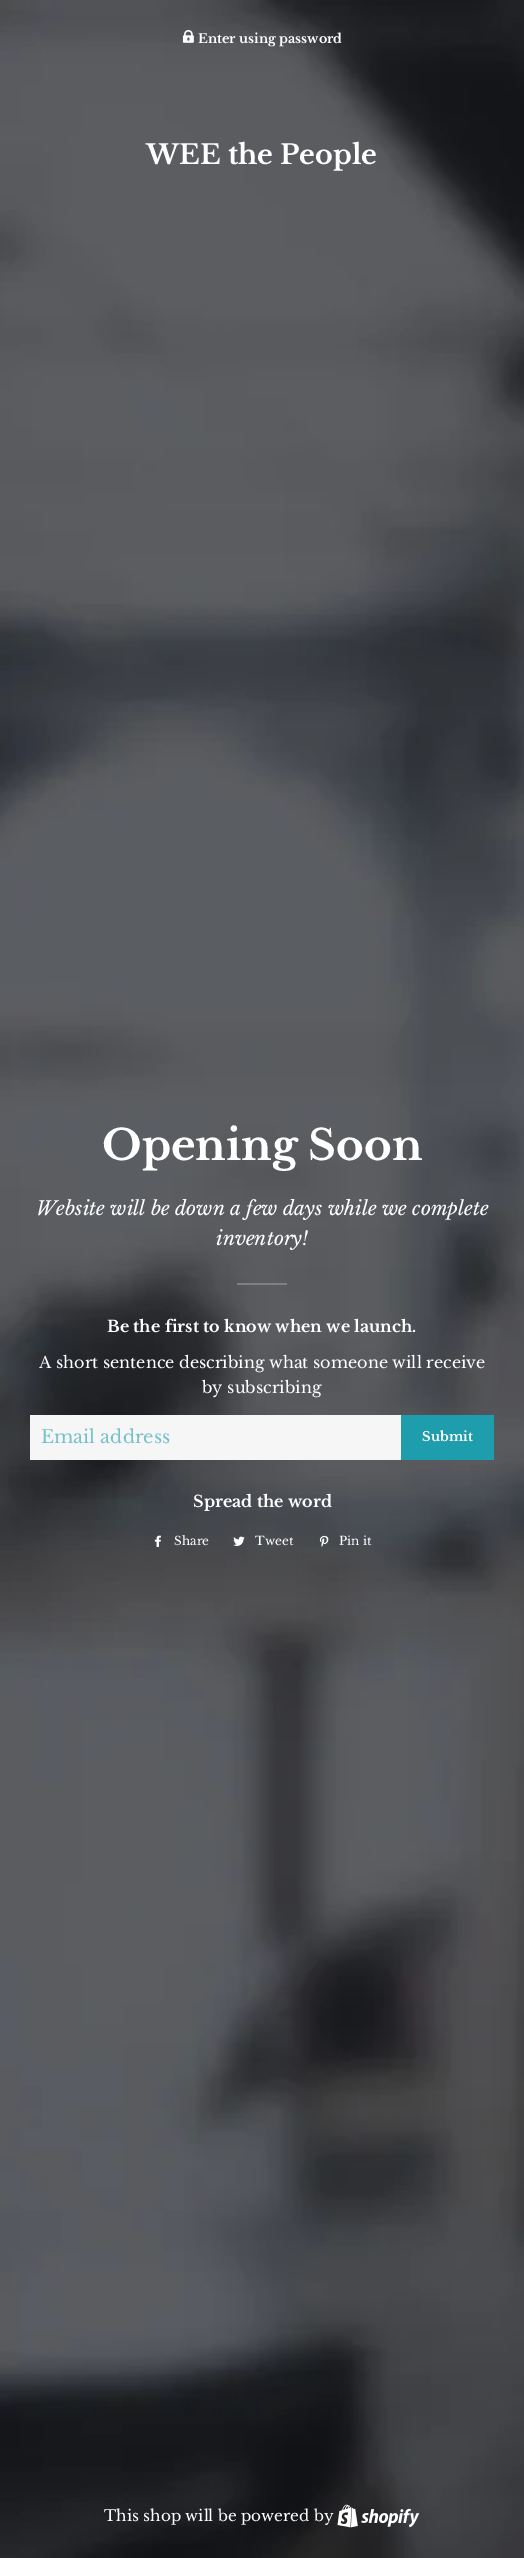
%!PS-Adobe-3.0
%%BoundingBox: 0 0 524 2558
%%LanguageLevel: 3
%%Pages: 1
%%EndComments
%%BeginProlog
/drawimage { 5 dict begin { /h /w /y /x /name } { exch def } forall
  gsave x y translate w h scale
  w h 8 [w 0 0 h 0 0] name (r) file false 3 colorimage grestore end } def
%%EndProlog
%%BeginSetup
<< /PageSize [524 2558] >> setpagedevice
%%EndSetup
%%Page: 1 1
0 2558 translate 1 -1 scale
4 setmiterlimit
1 setgray
0 0 524 2558 rectfill
(images/1.raw) 0 0 524 2558 drawimage
(images/2.raw) 182 30 12 13 drawimage
0.502 setgray
237 1283 50 2 rectfill
0.965 setgray
30 1415 371 45 rectfill
0.118 0.62 0.678 setrgbcolor
401 1415 93 45 rectfill
(images/3.raw) 154 1535 7 12 drawimage
(images/4.raw) 233 1536 12 10 drawimage
(images/5.raw) 319 1535 10 12 drawimage
(images/6.raw) 337 2504 83 24 drawimage
/LibreBaskerville-Bold [12.75 0 0 -12.75 0 0] selectfont
1 setgray
198 43 moveto (Enter using password) show
/LibreBaskerville-Bold [27 0 0 -27 0 0] selectfont
146 164 moveto (WEE the People) show
/LibreBaskerville-Bold [42 0 0 -42 0 0] selectfont
102 1160 moveto (Opening Soon) show
/LibreBaskerville-Italic [19.2 0 0 -19.2 0 0] selectfont
36 1215 moveto (Website will be down a few days while we complete) show
216 1245 moveto (inventory!) show
/LibreBaskerville-Bold [16 0 0 -16 0 0] selectfont
107 1332 moveto (Be the first to know when we launch.) show
/LibreBaskerville-Regular [16 0 0 -16 0 0] selectfont
39 1368 moveto (A short sentence describing what someone will receive) show
202 1393 moveto (by subscribing) show
/LibreBaskerville-Regular [18 0 0 -18 0 0] selectfont
0.455 0.757 0.792 setrgbcolor
41 1443 moveto (Email address) show
/LibreBaskerville-Bold [13 0 0 -13 0 0] selectfont
1 setgray
422 1441 moveto (Submit) show
/LibreBaskerville-Bold [16 0 0 -16 0 0] selectfont
193 1507 moveto (Spread the word) show
/LibreBaskerville-Regular [12 0 0 -12 0 0] selectfont
174 1545 moveto (Share) show
255 1545 moveto (Tweet) show
339 1545 moveto (Pin it) show
/LibreBaskerville-Regular [15.25 0 0 -15.25 0 0] selectfont
104 2521 moveto (This shop will be powered by) show
showpage
%%EOF
